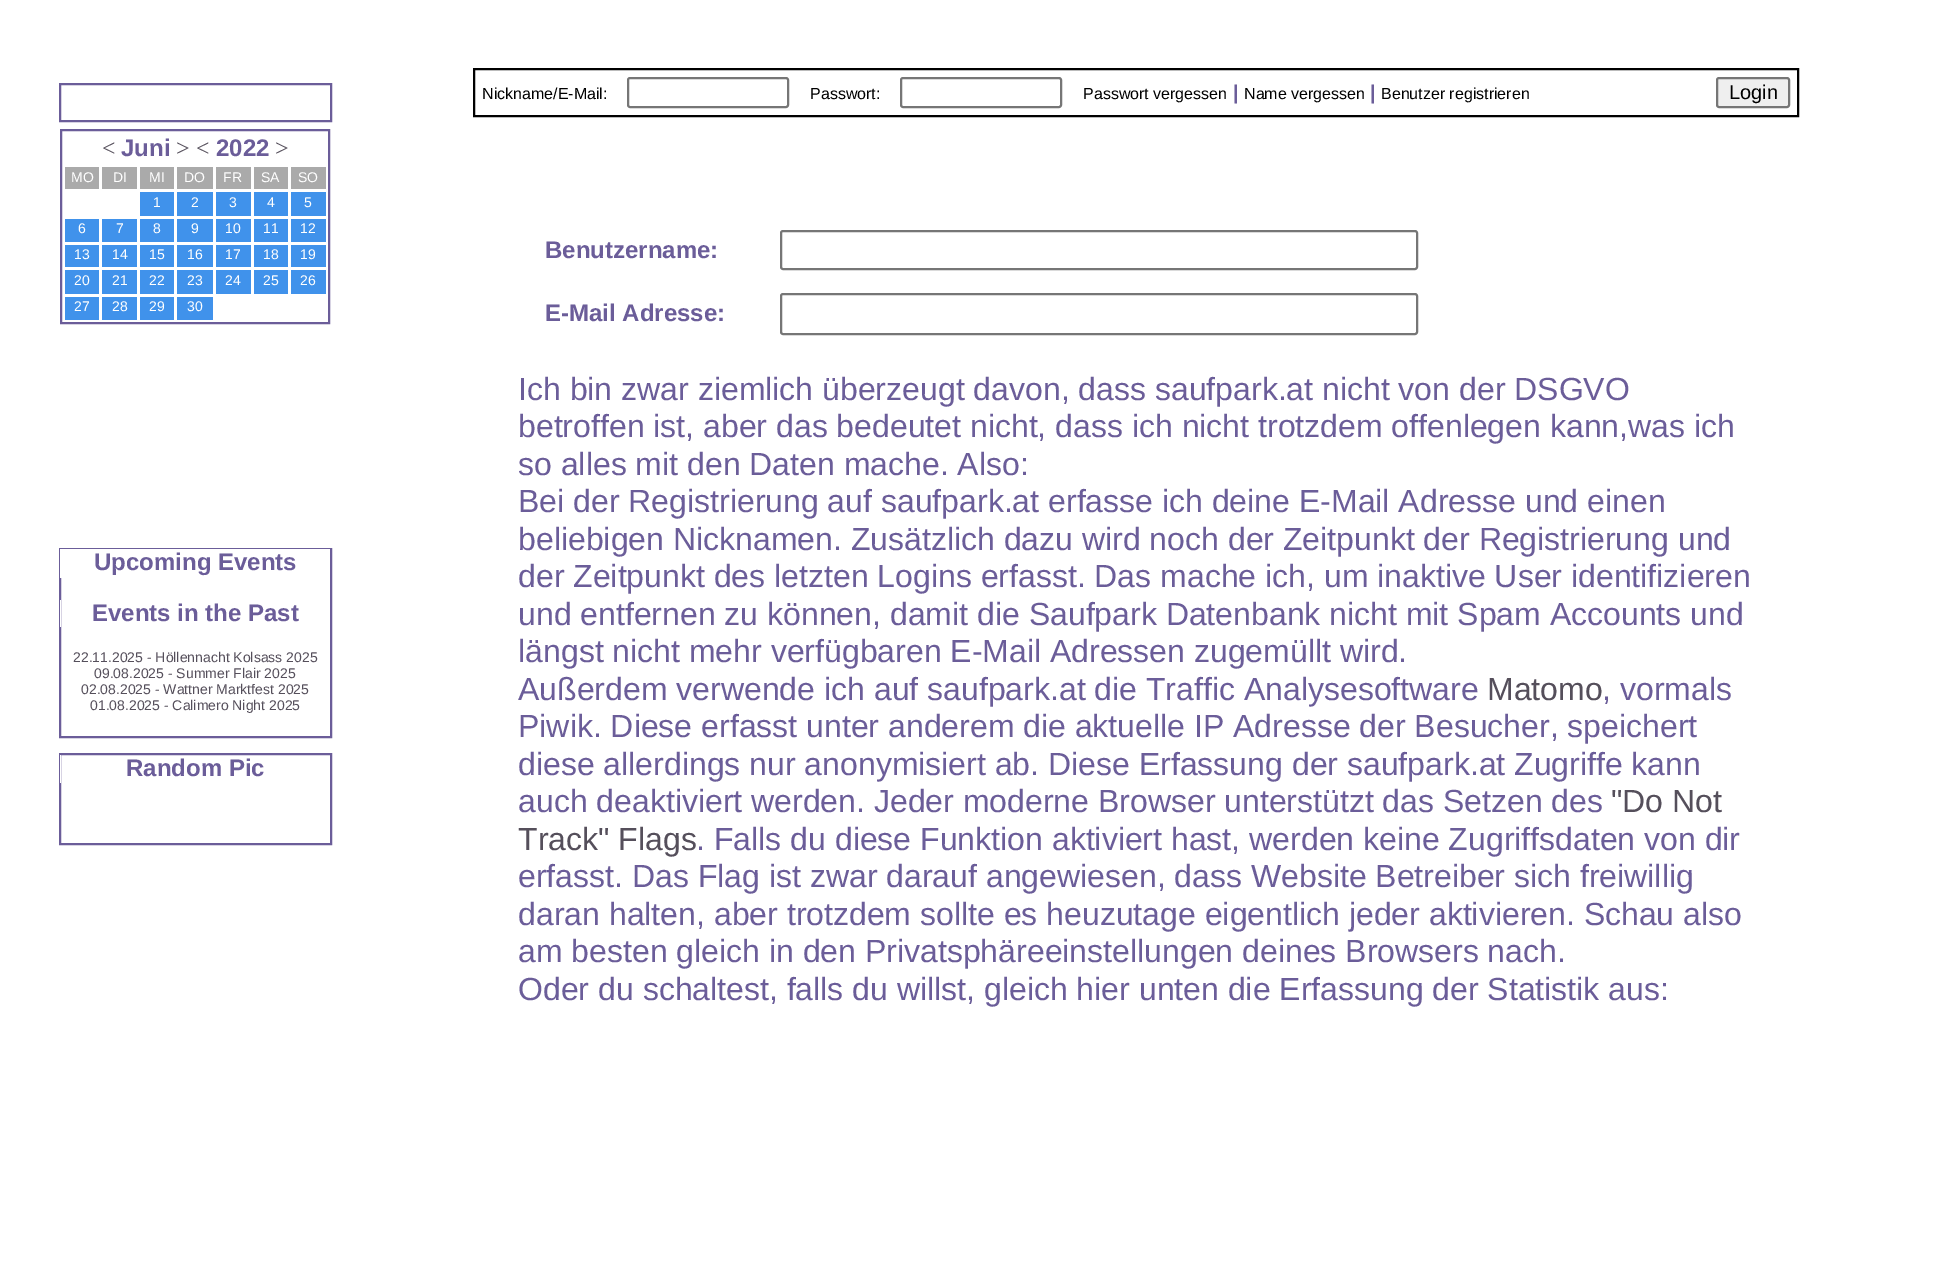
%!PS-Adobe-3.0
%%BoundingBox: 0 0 1956 1265
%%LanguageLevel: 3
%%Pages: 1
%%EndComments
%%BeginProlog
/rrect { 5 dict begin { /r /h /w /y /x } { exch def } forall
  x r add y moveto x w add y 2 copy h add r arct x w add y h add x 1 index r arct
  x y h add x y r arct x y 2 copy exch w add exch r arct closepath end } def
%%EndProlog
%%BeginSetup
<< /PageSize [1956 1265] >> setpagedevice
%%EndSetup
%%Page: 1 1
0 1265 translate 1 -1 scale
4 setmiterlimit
1 setgray
0 0 1956 1265 rectfill
0.42 0.365 0.6 setrgbcolor
2 setlinewidth
60 84 271 37 rectstroke
61 130 268 193 rectstroke
0.667 setgray
65 167 34 22 rectfill
102 167 35 22 rectfill
140 167 34 22 rectfill
177 167 36 22 rectfill
216 167 35 22 rectfill
254 167 34 22 rectfill
291 167 35 22 rectfill
0.251 0.573 0.922 setrgbcolor
140 192 34 24 rectfill
177 192 36 24 rectfill
216 192 35 24 rectfill
254 192 34 24 rectfill
291 192 35 24 rectfill
65 219 34 23 rectfill
102 219 35 23 rectfill
140 219 34 23 rectfill
177 219 36 23 rectfill
216 219 35 23 rectfill
254 219 34 23 rectfill
291 219 35 23 rectfill
65 245 34 22 rectfill
102 245 35 22 rectfill
140 245 34 22 rectfill
177 245 36 22 rectfill
216 245 35 22 rectfill
254 245 34 22 rectfill
291 245 35 22 rectfill
65 270 34 24 rectfill
102 270 35 24 rectfill
140 270 34 24 rectfill
177 270 36 24 rectfill
216 270 35 24 rectfill
254 270 34 24 rectfill
291 270 35 24 rectfill
65 297 34 23 rectfill
102 297 35 23 rectfill
140 297 34 23 rectfill
177 297 36 23 rectfill
0.42 0.365 0.6 setrgbcolor
60 549 271 188 rectstroke
1 setgray
60 549 270 29 rectfill
60 600 1 27 rectfill
0.42 0.365 0.6 setrgbcolor
60 754 271 90 rectstroke
1 setgray
60 755 1 28 rectfill
0 setgray
474 69 1324 47 rectstroke
0.463 setgray
628 78 160 29 2 rrect stroke
901 78 160 29 2 rrect stroke
0.937 setgray
1717 78 72 29 2 rrect gsave fill grestore
0.463 setgray
stroke
781 231 636 38 2 rrect stroke
781 294 636 40 2 rrect stroke
/LiberationSerif-Regular [24 0 0 -24 0 0] selectfont
0.333 0.31 0.357 setrgbcolor
102 156 moveto (<) show
/LiberationSans-Bold [24 0 0 -24 0 0] selectfont
0.42 0.365 0.6 setrgbcolor
121 156 moveto (Juni) show
/LiberationSerif-Regular [24 0 0 -24 0 0] selectfont
0.333 0.31 0.357 setrgbcolor
176 156 moveto (> <) show
/LiberationSans-Bold [24 0 0 -24 0 0] selectfont
0.42 0.365 0.6 setrgbcolor
216 156 moveto (2022) show
/LiberationSerif-Regular [24 0 0 -24 0 0] selectfont
0.333 0.31 0.357 setrgbcolor
275 156 moveto (>) show
/LiberationSans-Regular [14 0 0 -14 0 0] selectfont
1 setgray
71 182 moveto (MO) show
113 182 moveto (DI) show
149 182 moveto (MI) show
184 182 moveto (DO) show
223 182 moveto (FR) show
261 182 moveto (SA) show
298 182 moveto (SO) show
153 207 moveto (1) show
191 207 moveto (2) show
229 207 moveto (3) show
267 207 moveto (4) show
304 207 moveto (5) show
78 233 moveto (6) show
116 233 moveto (7) show
153 233 moveto (8) show
191 233 moveto (9) show
225 233 moveto (10) show
263 233 moveto (11) show
300 233 moveto (12) show
74 259 moveto (13) show
112 259 moveto (14) show
149 259 moveto (15) show
187 259 moveto (16) show
225 259 moveto (17) show
263 259 moveto (18) show
300 259 moveto (19) show
74 285 moveto (20) show
112 285 moveto (21) show
149 285 moveto (22) show
187 285 moveto (23) show
225 285 moveto (24) show
263 285 moveto (25) show
300 285 moveto (26) show
74 311 moveto (27) show
112 311 moveto (28) show
149 311 moveto (29) show
187 311 moveto (30) show
/LiberationSans-Bold [24 0 0 -24 0 0] selectfont
0.42 0.365 0.6 setrgbcolor
94 570 moveto (Upcoming Events) show
92 621 moveto (Events in the Past) show
/LiberationSans-Regular [14 0 0 -14 0 0] selectfont
0.333 0.31 0.357 setrgbcolor
73 662 moveto (22.11.2025 - Höllennacht Kolsass 2025) show
94 678 moveto (09.08.2025 - Summer Flair 2025) show
81 694 moveto (02.08.2025 - Wattner Marktfest 2025) show
90 710 moveto (01.08.2025 - Calimero Night 2025) show
/LiberationSans-Bold [24 0 0 -24 0 0] selectfont
0.42 0.365 0.6 setrgbcolor
126 776 moveto (Random Pic) show
/LiberationSans-Regular [16 0 0 -16 0 0] selectfont
0 setgray
482 99 moveto (Nickname/E-Mail:) show
810 99 moveto (Passwort:) show
1083 99 moveto (Passwort vergessen) show
/LiberationSans-Bold [20 0 0 -20 0 0] selectfont
0.42 0.365 0.6 setrgbcolor
1233 99 moveto (|) show
/LiberationSans-Regular [16 0 0 -16 0 0] selectfont
0 setgray
1244 99 moveto (Name vergessen) show
/LiberationSans-Bold [20 0 0 -20 0 0] selectfont
0.42 0.365 0.6 setrgbcolor
1370 99 moveto (|) show
/LiberationSans-Regular [16 0 0 -16 0 0] selectfont
0 setgray
1381 99 moveto (Benutzer registrieren) show
/LiberationSans-Regular [20 0 0 -20 0 0] selectfont
1729 99 moveto (Login) show
/LiberationSans-Bold [24 0 0 -24 0 0] selectfont
0.42 0.365 0.6 setrgbcolor
545 258 moveto (Benutzername:) show
545 321 moveto (E-Mail Adresse:) show
/LiberationSans-Regular [32 0 0 -32 0 0] selectfont
518 400 moveto (Ich bin zwar ziemlich überzeugt davon, dass saufpark.at nicht von der DSGVO) show
518 437 moveto (betroffen ist, aber das bedeutet nicht, dass ich nicht trotzdem offenlegen kann,was ich) show
518 475 moveto (so alles mit den Daten mache. Also:) show
518 512 moveto (Bei der Registrierung auf saufpark.at erfasse ich deine E-Mail Adresse und einen) show
518 550 moveto (beliebigen Nicknamen. Zusätzlich dazu wird noch der Zeitpunkt der Registrierung und) show
518 587 moveto (der Zeitpunkt des letzten Logins erfasst. Das mache ich, um inaktive User identifizieren) show
518 625 moveto (und entfernen zu können, damit die Saufpark Datenbank nicht mit Spam Accounts und) show
518 662 moveto (längst nicht mehr verfügbaren E-Mail Adressen zugemüllt wird.) show
518 700 moveto (Außerdem verwende ich auf saufpark.at die Traffic Analysesoftware) show
0.333 0.31 0.357 setrgbcolor
1487 700 moveto (Matomo) show
0.42 0.365 0.6 setrgbcolor
1602 700 moveto (, vormals) show
518 737 moveto (Piwik. Diese erfasst unter anderem die aktuelle IP Adresse der Besucher, speichert) show
518 775 moveto (diese allerdings nur anonymisiert ab. Diese Erfassung der saufpark.at Zugriffe kann) show
518 812 moveto (auch deaktiviert werden. Jeder moderne Browser unterstützt das Setzen des) show
0.333 0.31 0.357 setrgbcolor
1611 812 moveto ("Do Not) show
518 850 moveto (Track" Flags) show
0.42 0.365 0.6 setrgbcolor
696 850 moveto (. Falls du diese Funktion aktiviert hast, werden keine Zugriffsdaten von dir) show
518 887 moveto (erfasst. Das Flag ist zwar darauf angewiesen, dass Website Betreiber sich freiwillig) show
518 925 moveto (daran halten, aber trotzdem sollte es heuzutage eigentlich jeder aktivieren. Schau also) show
518 962 moveto (am besten gleich in den Privatsphäreeinstellungen deines Browsers nach.) show
518 1000 moveto (Oder du schaltest, falls du willst, gleich hier unten die Erfassung der Statistik aus:) show
showpage
%%EOF
